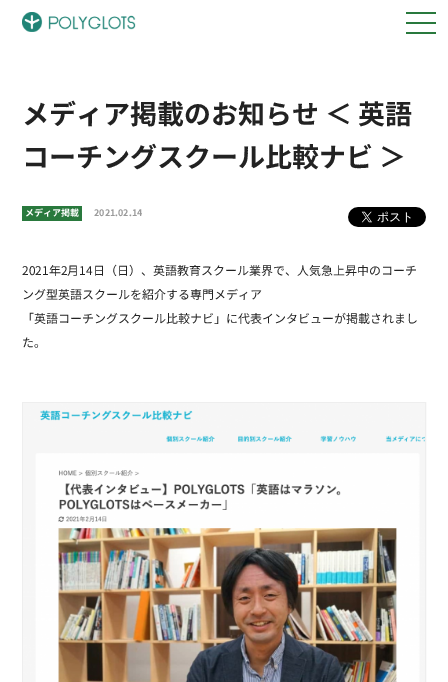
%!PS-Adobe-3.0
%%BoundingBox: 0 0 448 682
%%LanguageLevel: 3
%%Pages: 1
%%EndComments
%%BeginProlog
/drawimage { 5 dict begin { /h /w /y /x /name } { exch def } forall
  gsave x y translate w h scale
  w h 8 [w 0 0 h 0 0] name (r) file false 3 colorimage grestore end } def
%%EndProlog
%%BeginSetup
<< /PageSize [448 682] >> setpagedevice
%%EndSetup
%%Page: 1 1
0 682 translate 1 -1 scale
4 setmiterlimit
1 setgray
0 0 448 682 rectfill
(images/1.raw) 22 12 114 20 drawimage
0.161 0.475 0.239 setrgbcolor
406 12 30 2 rectfill
406 22 30 2 rectfill
406 32 30 2 rectfill
22 206 60 15 rectfill
(images/2.raw) 348 207 78 20 drawimage
0.933 setgray
22.5 402.5 403 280 rectstroke
(images/3.raw) 23 403 402 279 drawimage
/NotoSansJP-Bold [27 0 0 -27 0 0] selectfont
0.133 setgray
22 124 moveto (メディア掲載のお知らせ ＜ 英語) show
22 167 moveto (コーチングスクール比較ナビ ＞) show
/NotoSansJP-Bold [9 0 0 -9 0 0] selectfont
1 setgray
25 216 moveto (メディア掲載) show
0.6 setgray
94 216 moveto (2021.02.14) show
/NotoSansJP-Regular [12 0 0 -12 0 0] selectfont
0.133 setgray
22 275 moveto (2021年2月14日（日）、英語教育スクール業界で、人気急上昇中のコーチ) show
22 299 moveto (ング型英語スクールを紹介する専門メディア) show
22 323 moveto (「英語コーチングスクール比較ナビ」に代表インタビューが掲載されまし) show
22 347 moveto (た。) show
showpage
%%EOF
